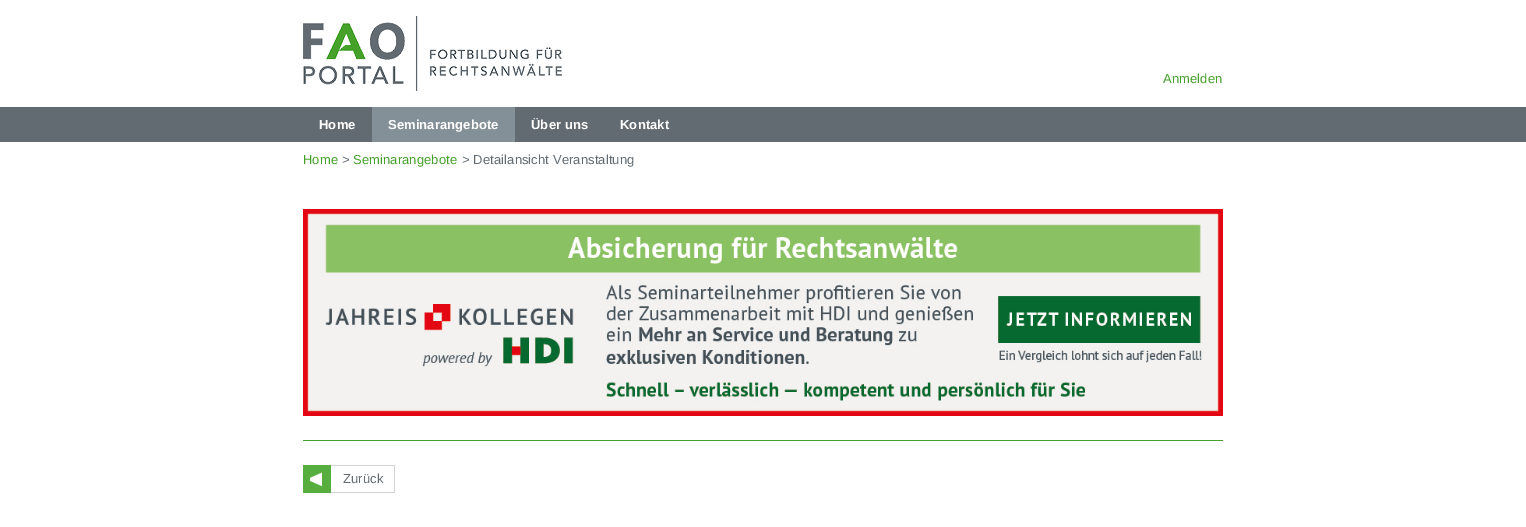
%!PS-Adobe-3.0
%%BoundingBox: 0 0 1526 527
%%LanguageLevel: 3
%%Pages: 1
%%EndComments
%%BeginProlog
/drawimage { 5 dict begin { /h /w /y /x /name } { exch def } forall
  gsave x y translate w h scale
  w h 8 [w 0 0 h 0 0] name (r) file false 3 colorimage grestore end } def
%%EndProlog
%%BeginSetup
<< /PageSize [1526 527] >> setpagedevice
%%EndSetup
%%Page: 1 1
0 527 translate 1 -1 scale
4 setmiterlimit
1 setgray
0 0 1526 527 rectfill
(images/1.raw) 303 16 259 75 drawimage
0.384 0.42 0.447 setrgbcolor
0 107 1526 35 rectfill
0.518 0.565 0.596 setrgbcolor
372 107 143 35 rectfill
(images/2.raw) 303 209 920 207 drawimage
0.275 0.631 0.173 setrgbcolor
303 440 920 1 rectfill
(images/3.raw) 303 465 91 28 drawimage
0.816 0.835 0.82 setrgbcolor
394 465 1 28 rectfill
/LiberationSans-Regular [13 0 0 -13 0 0] selectfont
0.275 0.631 0.173 setrgbcolor
1163 83 moveto 0.1 0 (Anmelden) ashow
/LiberationSans-Bold [13 0 0 -13 0 0] selectfont
1 setgray
319 129 moveto 0.1 0 (Home) ashow
388 129 moveto 0.1 0 (Seminarangebote) ashow
531 129 moveto 0.1 0 (Über uns) ashow
620 129 moveto 0.1 0 (Kontakt) ashow
/LiberationSans-Regular [13 0 0 -13 0 0] selectfont
0.275 0.631 0.173 setrgbcolor
303 164 moveto 0.1 0 (Home) ashow
0.384 0.42 0.447 setrgbcolor
342 164 moveto 0.1 0 (>) ashow
0.275 0.631 0.173 setrgbcolor
353 164 moveto 0.1 0 (Seminarangebote) ashow
0.384 0.42 0.447 setrgbcolor
462 164 moveto 0.1 0 (> Detailansicht Veranstaltung) ashow
343 483 moveto 0.1 0 (Zurück) ashow
showpage
%%EOF
